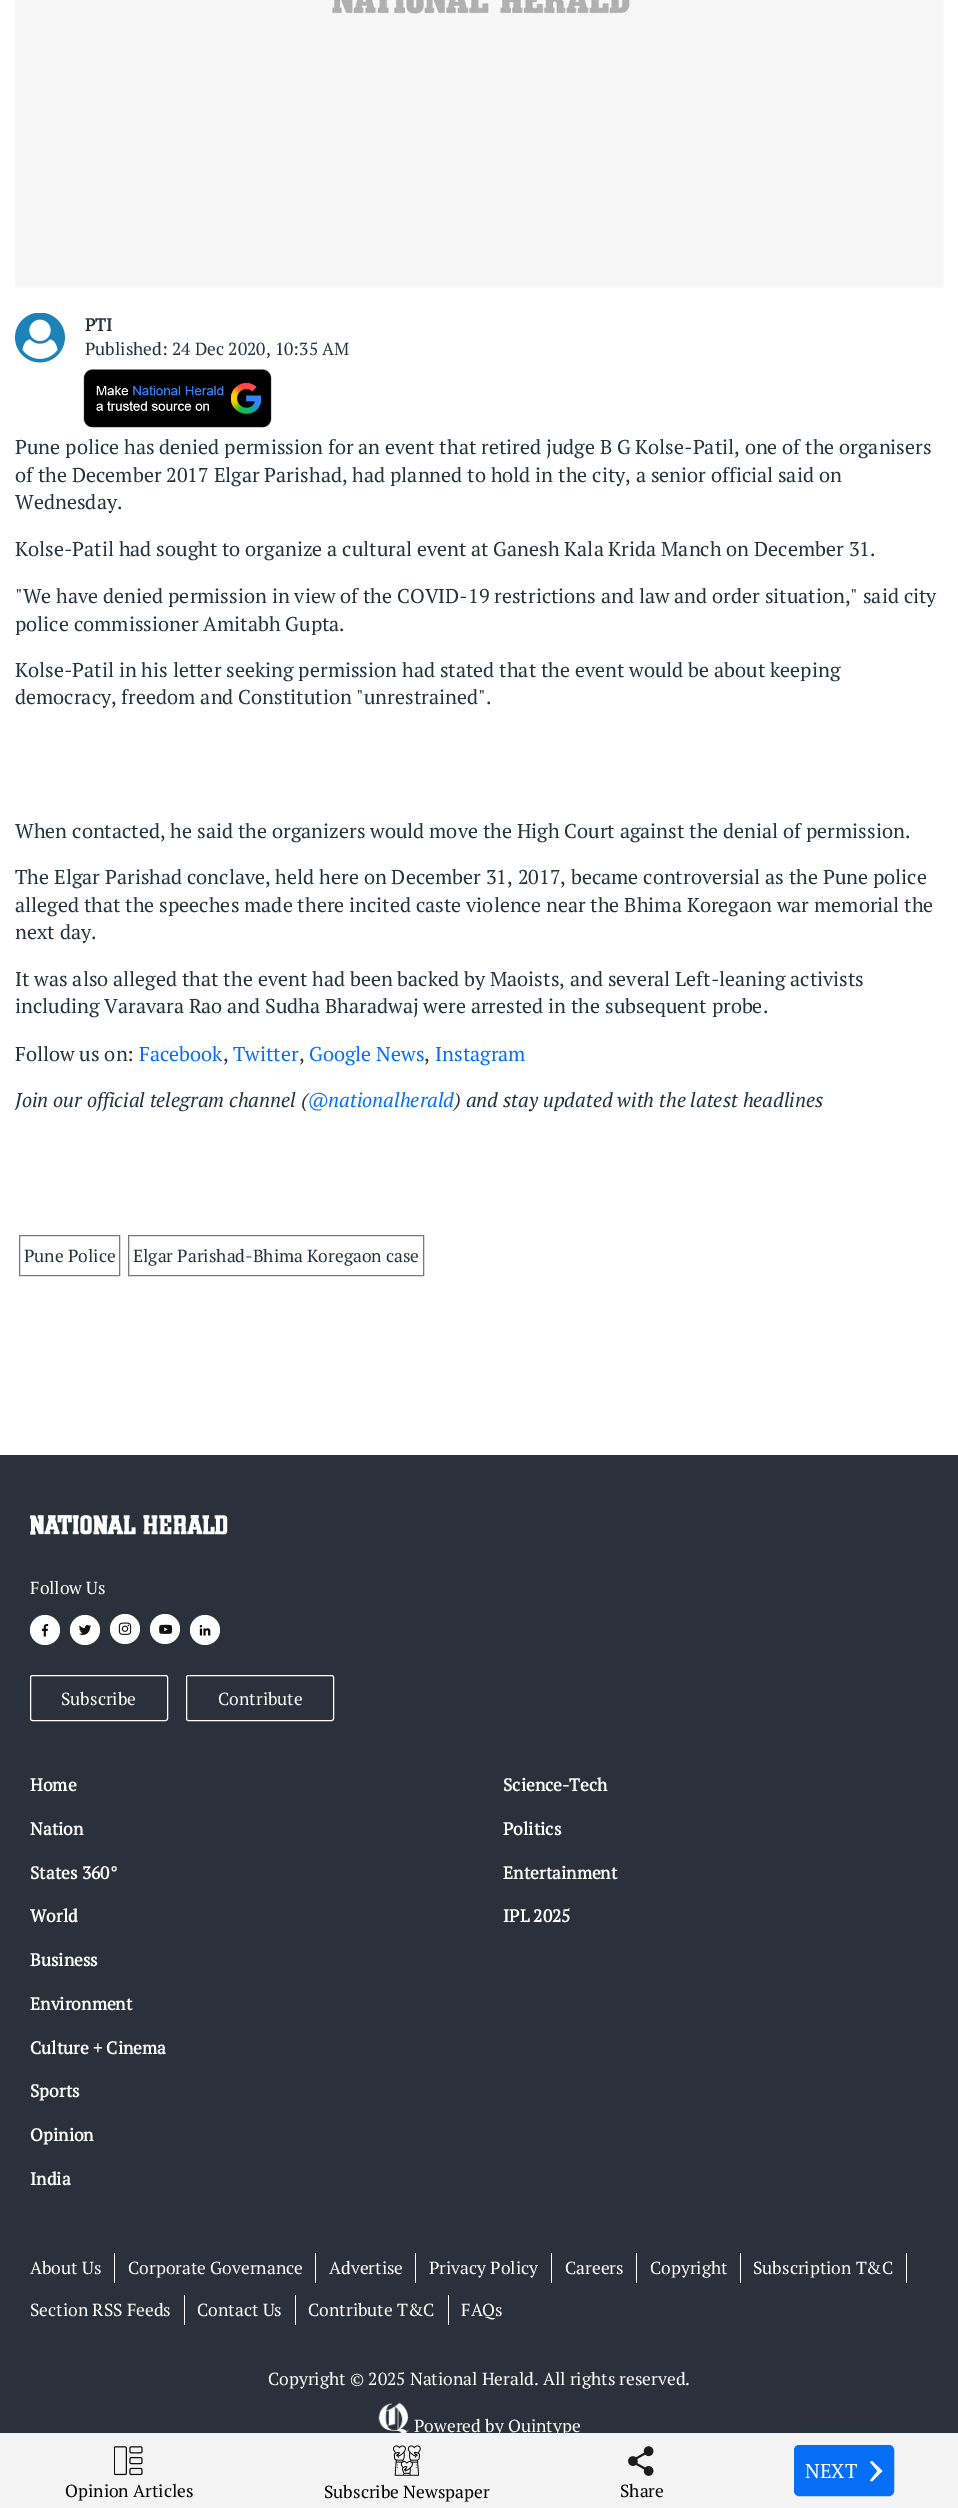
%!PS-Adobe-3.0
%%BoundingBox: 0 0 958 2508
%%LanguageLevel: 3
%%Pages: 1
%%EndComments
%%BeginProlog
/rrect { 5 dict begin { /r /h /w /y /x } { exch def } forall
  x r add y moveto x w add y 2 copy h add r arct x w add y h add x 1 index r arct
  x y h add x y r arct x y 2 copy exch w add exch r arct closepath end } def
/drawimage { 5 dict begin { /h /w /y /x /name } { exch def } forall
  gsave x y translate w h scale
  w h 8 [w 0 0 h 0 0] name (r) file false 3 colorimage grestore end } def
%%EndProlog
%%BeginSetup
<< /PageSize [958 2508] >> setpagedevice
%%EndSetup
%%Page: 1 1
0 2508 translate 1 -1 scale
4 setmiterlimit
1 setgray
0 0 958 2508 rectfill
(images/1.raw) 15 0 929 288 drawimage
(images/2.raw) 15 313 50 50 drawimage
(images/3.raw) 83 369 189 59 drawimage
0.475 setgray
19.5 1235.5 100 40 rectstroke
128.5 1235.5 295 40 rectstroke
0.165 0.192 0.231 setrgbcolor
0 1455 958 978 rectfill
(images/7.raw) 30 1515 198 20 drawimage
1 setgray
newpath 45 1630 15 0 360 arc closepath fill
(images/8.raw) 41 1624 8 13 drawimage
newpath 85 1630 15 0 360 arc closepath fill
(images/9.raw) 79 1625 13 10 drawimage
newpath 125 1629 15 0 360 arc closepath fill
(images/10.raw) 118 1622 14 13 drawimage
newpath 165 1629 15 0 360 arc closepath fill
(images/11.raw) 159 1624 14 10 drawimage
newpath 205 1630 15 0 360 arc closepath fill
(images/12.raw) 199 1625 12 11 drawimage
30.5 1675.5 137 45 2 rrect stroke
186.5 1675.5 147 45 2 rrect stroke
114 2253 1 30 rectfill
315 2253 1 30 rectfill
415 2253 1 30 rectfill
551 2253 1 30 rectfill
636 2253 1 30 rectfill
740 2253 1 30 rectfill
906 2253 1 30 rectfill
184 2295 1 30 rectfill
295 2295 1 30 rectfill
448 2295 1 30 rectfill
(images/13.raw) 378 2402 31 31 drawimage
/PTSerif-Bold [17.5 0 0 -17.5 0 0] selectfont
0.165 0.192 0.231 setrgbcolor
85 331 moveto (PTI) show
/PTSerif-Regular [17.5 0 0 -17.5 0 0] selectfont
85 355 moveto (Published: 24 Dec 2020, 10:35 AM) show
/PTSerif-Regular [20 0 0 -20 0 0] selectfont
15 454 moveto (Pune police has denied permission for an event that retired judge B G Kolse-Patil, one of the organisers) show
15 482 moveto (of the December 2017 Elgar Parishad, had planned to hold in the city, a senior official said on) show
15 509 moveto (Wednesday.) show
15 556 moveto (Kolse-Patil had sought to organize a cultural event at Ganesh Kala Krida Manch on December 31.) show
15 603 moveto ("We have denied permission in view of the COVID-19 restrictions and law and order situation," said city) show
15 631 moveto (police commissioner Amitabh Gupta.) show
15 677 moveto (Kolse-Patil in his letter seeking permission had stated that the event would be about keeping) show
15 704 moveto (democracy, freedom and Constitution "unrestrained".) show
15 838 moveto (When contacted, he said the organizers would move the High Court against the denial of permission.) show
15 884 moveto (The Elgar Parishad conclave, held here on December 31, 2017, became controversial as the Pune police) show
15 912 moveto (alleged that the speeches made there incited caste violence near the Bhima Koregaon war memorial the) show
15 939 moveto (next day.) show
15 986 moveto (It was also alleged that the event had been backed by Maoists, and several Left-leaning activists) show
15 1013 moveto (including Varavara Rao and Sudha Bharadwaj were arrested in the subsequent probe.) show
15 1061 moveto (Follow us on:) show
0.02 0.435 0.969 setrgbcolor
139 1061 moveto (Facebook) show
0.165 0.192 0.231 setrgbcolor
223 1061 moveto (,) show
0.02 0.435 0.969 setrgbcolor
233 1061 moveto (Twitter) show
0.165 0.192 0.231 setrgbcolor
299 1061 moveto (,) show
0.02 0.435 0.969 setrgbcolor
309 1061 moveto (Google News) show
0.165 0.192 0.231 setrgbcolor
424 1061 moveto (,) show
0.02 0.435 0.969 setrgbcolor
435 1061 moveto (Instagram) show
/PTSerif-Italic [20 0 0 -20 0 0] selectfont
0.165 0.192 0.231 setrgbcolor
15 1107 moveto (Join our official telegram channel \() show
0.02 0.435 0.969 setrgbcolor
308 1107 moveto (@nationalherald) show
0.165 0.192 0.231 setrgbcolor
454 1107 moveto (\) and stay updated with the latest headlines) show
/PTSerif-Regular [17.5 0 0 -17.5 0 0] selectfont
24 1262 moveto (Pune Police) show
133 1262 moveto (Elgar Parishad-Bhima Koregaon case) show
1 setgray
30 1594 moveto (Follow Us) show
61 1705 moveto (Subscribe) show
218 1705 moveto (Contribute) show
/PTSerif-Bold [17.5 0 0 -17.5 0 0] selectfont
30 1791 moveto (Home) show
503 1791 moveto (Science-Tech) show
30 1835 moveto (Nation) show
503 1835 moveto (Politics) show
30 1879 moveto (States 360°) show
503 1879 moveto (Entertainment) show
30 1922 moveto (World) show
503 1922 moveto (IPL 2025) show
30 1966 moveto (Business) show
30 2010 moveto (Environment) show
30 2054 moveto (Culture + Cinema) show
30 2097 moveto (Sports) show
30 2141 moveto (Opinion) show
30 2185 moveto (India) show
/PTSerif-Regular [17.5 0 0 -17.5 0 0] selectfont
30 2274 moveto (About Us) show
128 2274 moveto (Corporate Governance) show
329 2274 moveto (Advertise) show
429 2274 moveto (Privacy Policy) show
565 2274 moveto (Careers) show
650 2274 moveto (Copyright) show
753 2274 moveto (Subscription T&C) show
30 2316 moveto (Section RSS Feeds) show
197 2316 moveto (Contact Us) show
308 2316 moveto (Contribute T&C) show
461 2316 moveto (FAQs) show
268 2385 moveto (Copyright © 2025 National Herald. All rights reserved.) show
414 2432 moveto (Powered by Quintype) show
0.957 setgray
0 2433 958 75 rectfill
0.02 0.435 0.969 setrgbcolor
794.5 2445.5 99 50 4.5 rrect gsave fill grestore
stroke
1 setgray
newpath 870 2480.5 moveto 877.5 2471 lineto 870 2462 lineto 872 2461 lineto 882.5 2471 lineto 872 2481.5 lineto closepath fill
(images/6.raw) 628 2446 26 30 drawimage
(images/5.raw) 393 2445 28 31 drawimage
(images/4.raw) 114 2446 29 30 drawimage
/PTSerif-Regular [20 0 0 -20 0 0] selectfont
805 2478 moveto (NEXT) show
/PTSerif-Regular [17.5 0 0 -17.5 0 0] selectfont
0 setgray
620 2497 moveto (Share) show
324 2498 moveto (Subscribe Newspaper) show
65 2497 moveto (Opinion Articles) show
showpage
%%EOF
